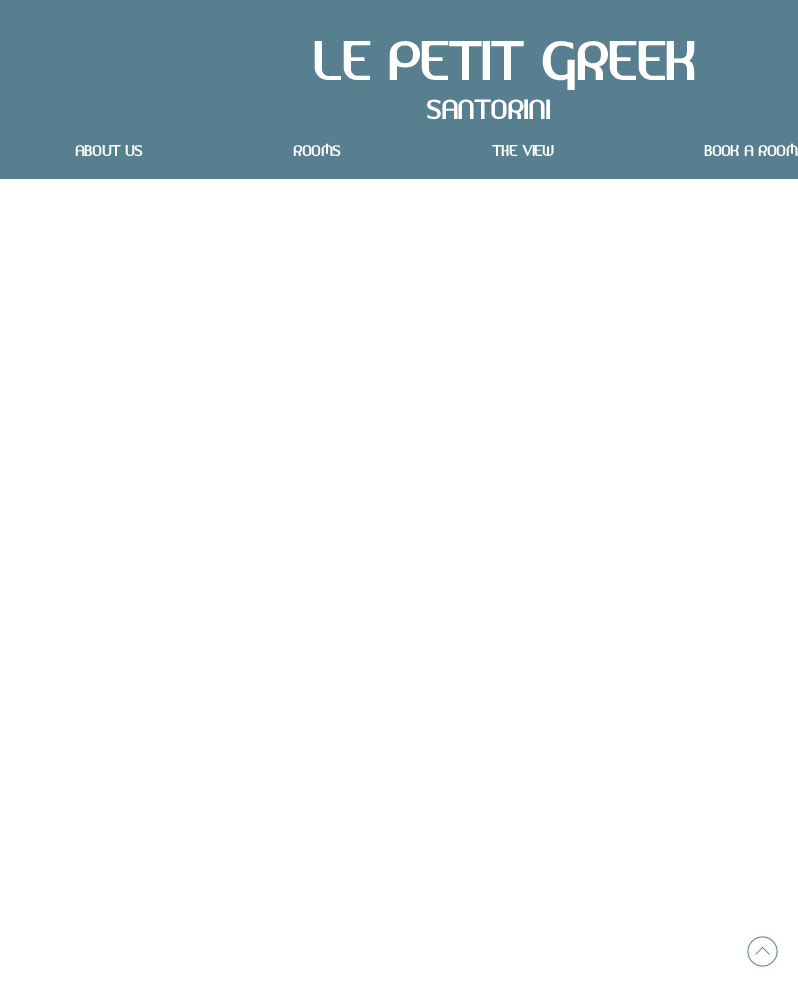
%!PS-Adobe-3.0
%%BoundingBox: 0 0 798 987
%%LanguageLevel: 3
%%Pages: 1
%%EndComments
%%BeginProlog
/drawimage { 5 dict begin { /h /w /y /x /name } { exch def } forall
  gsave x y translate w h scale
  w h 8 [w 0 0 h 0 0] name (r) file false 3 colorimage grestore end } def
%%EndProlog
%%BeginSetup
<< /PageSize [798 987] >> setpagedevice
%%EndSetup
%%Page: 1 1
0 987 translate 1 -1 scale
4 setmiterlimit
1 setgray
0 0 798 987 rectfill
0.345 0.498 0.561 setrgbcolor
0 0 798 179 rectfill
(images/1.raw) 746 935 33 33 drawimage
/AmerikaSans-Bold [50 0 0 -50 0 0] selectfont
1 setgray
312 80 moveto (LE PETIT GREEK) show
/AmerikaSans-Bold [25 0 0 -25 0 0] selectfont
426 119 moveto (SANTORINI) show
/AmerikaSans-Bold [14 0 0 -14 0 0] selectfont
75 156 moveto (ABOUT US) show
293 156 moveto (ROOMS) show
492 156 moveto (THE VIEW) show
704 156 moveto (BOOK A ROOM) show
showpage
%%EOF
